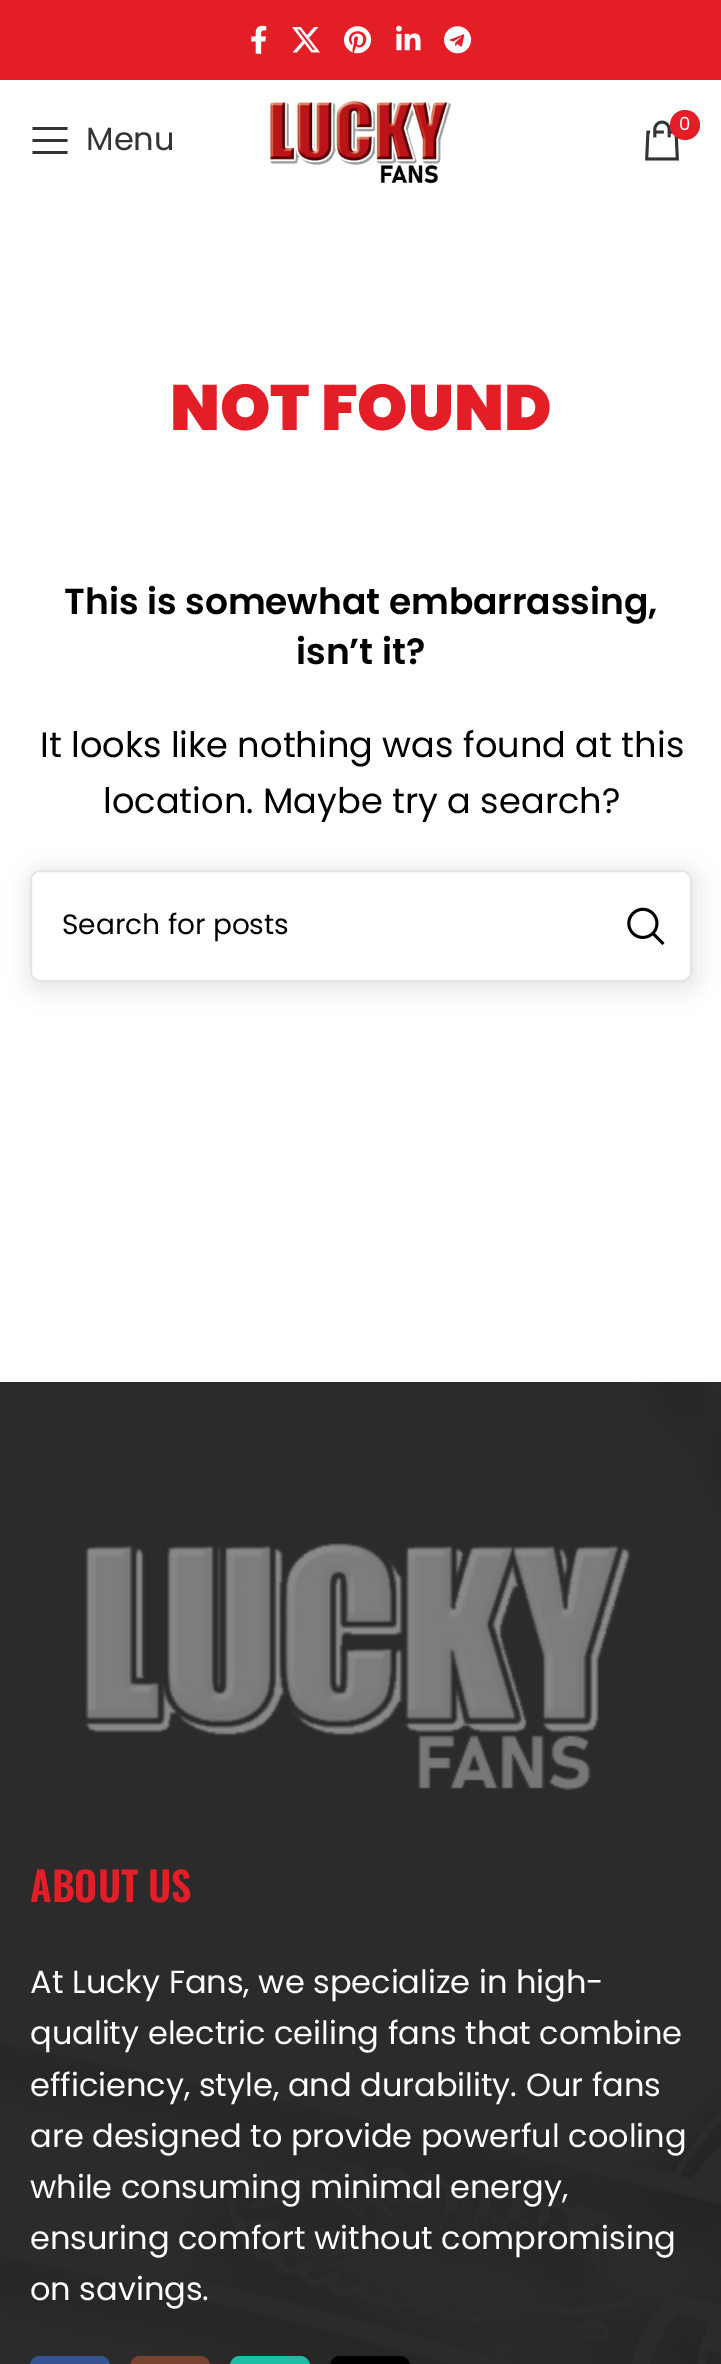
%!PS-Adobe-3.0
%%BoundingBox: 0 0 721 2364
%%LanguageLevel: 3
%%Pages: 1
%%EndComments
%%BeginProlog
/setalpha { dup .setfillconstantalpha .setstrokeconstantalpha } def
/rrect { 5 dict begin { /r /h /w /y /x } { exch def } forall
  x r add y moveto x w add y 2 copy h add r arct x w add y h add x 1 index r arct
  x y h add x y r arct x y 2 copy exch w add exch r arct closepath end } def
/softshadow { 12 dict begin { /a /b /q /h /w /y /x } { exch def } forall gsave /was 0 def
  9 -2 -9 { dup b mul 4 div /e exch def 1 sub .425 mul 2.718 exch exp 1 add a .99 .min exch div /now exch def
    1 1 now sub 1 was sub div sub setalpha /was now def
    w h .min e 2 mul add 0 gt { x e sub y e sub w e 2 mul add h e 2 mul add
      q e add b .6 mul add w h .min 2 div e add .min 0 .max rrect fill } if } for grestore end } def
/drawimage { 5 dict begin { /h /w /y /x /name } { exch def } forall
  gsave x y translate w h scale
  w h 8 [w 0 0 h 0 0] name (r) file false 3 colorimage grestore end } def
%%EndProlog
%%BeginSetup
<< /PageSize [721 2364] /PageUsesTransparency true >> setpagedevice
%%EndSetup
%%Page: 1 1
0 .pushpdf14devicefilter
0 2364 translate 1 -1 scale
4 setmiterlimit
1 setgray
0 0 721 2364 rectfill
0.89 0.118 0.153 setrgbcolor
0 0 721 80 rectfill
(images/1.raw) 251 25 16 29 drawimage
(images/2.raw) 292 27 28 26 drawimage
(images/3.raw) 344 26 28 28 drawimage
(images/4.raw) 396 25 25 26 drawimage
(images/5.raw) 444 26 28 28 drawimage
(images/6.raw) 270 101 181 83 drawimage
(images/7.raw) 645 120 34 41 drawimage
newpath 685 125 15 0 360 arc closepath fill
0.2 setgray
newpath 32.5 130 moveto 67.5 130 lineto 67.5 127 lineto 32.5 127 lineto closepath 32.5 142 moveto 67.5 142 lineto 67.5 139 lineto 32.5 139 lineto closepath 32.5 154 moveto 67.5 154 lineto 67.5 151 lineto 32.5 151 lineto closepath fill
0.722 setgray
26 868 674 124 16 10 0.29 softshadow
1 setgray
30 870 662 112 10 rrect fill
0.1 setalpha
0 setgray
2 setlinewidth
31 871 660 110 9 rrect stroke
1 setalpha
(images/8.raw) 627 907 38 38 drawimage
0.141 setgray
0 1382 721 982 rectfill
(images/9.raw) 0 1382 721 982 drawimage
(images/10.raw) 85 1543 546 248 drawimage
0.212 0.329 0.576 setrgbcolor
30 2356 80 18 10 rrect fill
0.467 0.267 0.188 setrgbcolor
130 2356 80 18 10 rrect fill
0.118 0.745 0.647 setrgbcolor
230 2356 80 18 10 rrect fill
0.004 setgray
330 2356 80 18 10 rrect fill
/Poppins-Regular [18 0 0 -18 0 0] selectfont
1 setgray
679 130 moveto (0) show
/Poppins-Regular [32 0 0 -32 0 0] selectfont
0.2 setgray
86 150 moveto (Menu) show
/Poppins-Black [64 0 0 -64 0 0] selectfont
0.89 0.118 0.153 setrgbcolor
170 430 moveto (NOT FOUND) show
/Poppins-SemiBold [36 0 0 -36 0 0] selectfont
0 setgray
64 614 moveto (This is somewhat embarrassing,) show
296 664 moveto (isn’t it?) show
/Poppins-Regular [35.25 0 0 -35.25 0 0] selectfont
40 757 moveto (It looks like nothing was found at this) show
103 813 moveto (location. Maybe try a search?) show
/Poppins-Regular [28 0 0 -28 0 0] selectfont
62 934 moveto (Search for posts) show
/Oswald-SemiBold [40 0 0 -40 0 0] selectfont
0.89 0.118 0.153 setrgbcolor
30 1902 moveto (ABOUT US) show
/Poppins-Regular [32 0 0 -32 0 0] selectfont
1 setgray
30 1993 moveto (At Lucky Fans, we specialize in high-) show
30 2044 moveto (quality electric ceiling fans that combine) show
30 2096 moveto (efficiency, style, and durability. Our fans) show
30 2147 moveto (are designed to provide powerful cooling) show
30 2198 moveto (while consuming minimal energy,) show
30 2249 moveto (ensuring comfort without compromising) show
30 2300 moveto (on savings.) show
.poppdf14devicefilter showpage
%%EOF
